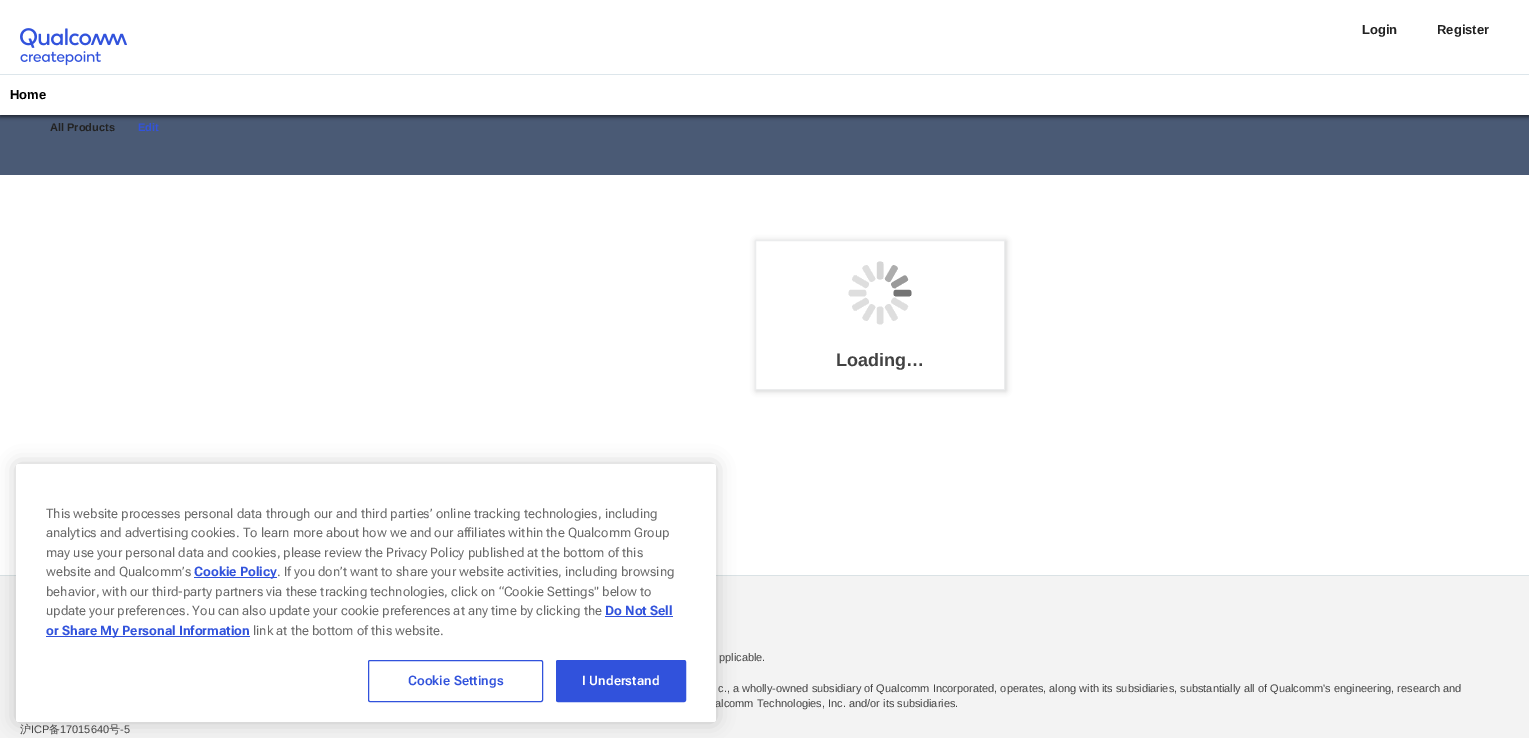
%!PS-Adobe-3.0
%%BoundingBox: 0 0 1529 738
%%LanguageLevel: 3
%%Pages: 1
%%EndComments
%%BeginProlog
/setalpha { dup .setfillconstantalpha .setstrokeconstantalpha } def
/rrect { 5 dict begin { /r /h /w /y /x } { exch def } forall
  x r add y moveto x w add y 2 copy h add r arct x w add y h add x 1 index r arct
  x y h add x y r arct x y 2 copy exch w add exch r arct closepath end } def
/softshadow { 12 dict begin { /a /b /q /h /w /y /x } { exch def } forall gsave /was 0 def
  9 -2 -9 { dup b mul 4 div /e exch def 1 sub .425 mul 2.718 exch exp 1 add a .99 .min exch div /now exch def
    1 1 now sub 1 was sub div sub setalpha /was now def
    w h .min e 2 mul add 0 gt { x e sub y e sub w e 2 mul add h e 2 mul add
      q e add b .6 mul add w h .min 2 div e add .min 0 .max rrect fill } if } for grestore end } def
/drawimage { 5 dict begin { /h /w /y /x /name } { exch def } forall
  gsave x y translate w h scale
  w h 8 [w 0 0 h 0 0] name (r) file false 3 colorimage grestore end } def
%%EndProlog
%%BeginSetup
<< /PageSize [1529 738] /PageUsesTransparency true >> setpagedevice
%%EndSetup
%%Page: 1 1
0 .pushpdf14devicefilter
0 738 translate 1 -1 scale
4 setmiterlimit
0.953 setgray
0 0 1529 738 rectfill
0.29 0.353 0.459 setrgbcolor
0 115 1529 60 rectfill
0 setgray
0 2 1529 115 0 2 0.6 softshadow
1 setgray
0 0 1529 74 rectfill
(images/1.raw) 20 28 107 38 drawimage
0 75 1529 40 rectfill
0.867 0.902 0.922 setrgbcolor
0 74 1529 1 rectfill
1 setgray
0 175 1529 400 rectfill
gsave
newpath 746 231 moveto 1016 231 lineto 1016 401 lineto 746 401 lineto closepath 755 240 moveto 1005 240 lineto 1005 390 lineto 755 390 lineto closepath eoclip newpath
0 setgray
756 241 250 150 0 3 0.2 softshadow
grestore
(images/2.raw) 848 261 64 64 drawimage
0.922 0.925 0.929 setrgbcolor
755.5 240.5 249 149 rectstroke
0.855 0.886 0.898 setrgbcolor
0 575 1529 1 rectfill
0 setgray
16 464 700 258 2.5 9 0.2 softshadow
/LiberationSans-Bold [13 0 0 -13 0 0] selectfont
0.133 setgray
1362 34 moveto (Login) show
1437 34 moveto (Register) show
0 setgray
10 99 moveto (Home) show
/LiberationSans-Bold [11 0 0 -11 0 0] selectfont
0.133 setgray
50 131 moveto (All Products) show
0.196 0.325 0.863 setrgbcolor
138 131 moveto (Edit) show
/LiberationSans-Bold [18 0 0 -18 0 0] selectfont
0.259 setgray
836 366 moveto (Loading…) show
/LiberationSans-Regular [11 0 0 -11 0 0] selectfont
719 661 moveto (pplicable.) show
718 692 moveto (c., a wholly-owned subsidiary of Qualcomm Incorporated, operates, along with its subsidiaries, substantially all of Qualcomm's engineering, research and) show
715 707 moveto (alcomm Technologies, Inc. and/or its subsidiaries.) show
/WenQuanYiZenHei-Medium [11 0 0 -11 0 0] selectfont
20 733 moveto (沪) show
/LiberationSans-Regular [11 0 0 -11 0 0] selectfont
31 733 moveto (ICP) show
/WenQuanYiZenHei-Medium [11 0 0 -11 0 0] selectfont
49 733 moveto (备) show
/LiberationSans-Regular [11 0 0 -11 0 0] selectfont
60 733 moveto (17015640) show
/WenQuanYiZenHei-Medium [11 0 0 -11 0 0] selectfont
109 733 moveto (号) show
/LiberationSans-Regular [11 0 0 -11 0 0] selectfont
120 733 moveto (-5) show
1 setgray
16 464 700 258 2.5 rrect fill
/RobotoFlex-Regular [13 0 0 -13 0 0] selectfont
0.412 setgray
46 518 moveto (This website processes personal data through our and third parties’ online tracking technologies, including) show
46 537 moveto (analytics and advertising cookies. To learn more about how we and our affiliates within the Qualcomm Group) show
46 557 moveto (may use your personal data and cookies, please review the Privacy Policy published at the bottom of this) show
46 576 moveto (website and Qualcomm’s) show
0.192 0.322 0.863 setrgbcolor
194 577 83 1 rectfill
/RobotoFlex-Bold [13 0 0 -13 0 0] selectfont
0.196 0.325 0.863 setrgbcolor
194 576 moveto (Cookie Policy) show
/RobotoFlex-Regular [13 0 0 -13 0 0] selectfont
0.412 setgray
277 576 moveto (. If you don’t want to share your website activities, including browsing) show
46 596 moveto (behavior, with our third-party partners via these tracking technologies, click on “Cookie Settings" below to) show
46 615 moveto (update your preferences. You can also update your cookie preferences at any time by clicking the) show
/RobotoFlex-Bold [13 0 0 -13 0 0] selectfont
0.196 0.325 0.863 setrgbcolor
605 615 moveto (Do Not Sell) show
0.192 0.322 0.863 setrgbcolor
605 616 68 1 rectfill
46 636 204 1 rectfill
0.196 0.325 0.863 setrgbcolor
46 635 moveto (or Share My Personal Information) show
/RobotoFlex-Regular [13 0 0 -13 0 0] selectfont
0.412 setgray
253 635 moveto (link at the bottom of this website.) show
0.192 0.322 0.863 setrgbcolor
368.5 660.5 174 41 1.5 rrect stroke
/RobotoFlex-SemiBold [13 0 0 -13 0 0] selectfont
0.196 0.325 0.863 setrgbcolor
408 685 moveto 0.1 0 (Cookie Settings) ashow
0.192 0.322 0.863 setrgbcolor
556.5 660.5 129 41 1.5 rrect gsave fill grestore
stroke
1 setgray
582 685 moveto 0.1 0 (I Understand) ashow
.poppdf14devicefilter showpage
%%EOF
